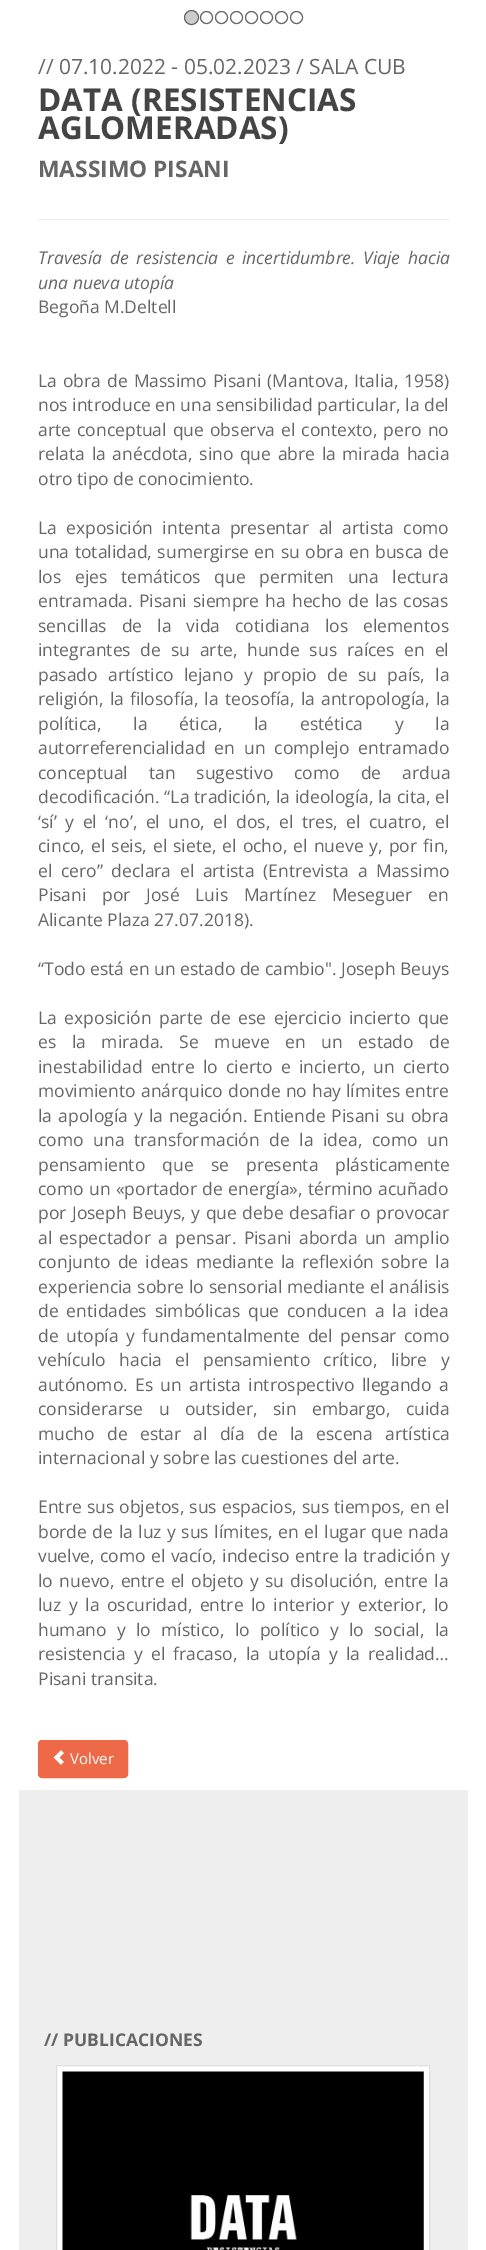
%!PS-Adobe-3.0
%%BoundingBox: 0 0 486 2250
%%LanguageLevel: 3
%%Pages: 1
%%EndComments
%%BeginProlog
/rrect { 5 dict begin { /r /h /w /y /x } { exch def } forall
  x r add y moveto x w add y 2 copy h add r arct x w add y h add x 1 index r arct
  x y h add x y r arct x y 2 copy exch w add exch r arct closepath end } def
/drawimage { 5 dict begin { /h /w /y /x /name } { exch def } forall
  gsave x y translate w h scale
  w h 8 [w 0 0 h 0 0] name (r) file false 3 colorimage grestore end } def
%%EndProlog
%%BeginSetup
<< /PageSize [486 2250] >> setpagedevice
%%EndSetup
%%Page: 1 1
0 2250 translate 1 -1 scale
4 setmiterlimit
1 setgray
0 0 486 2250 rectfill
0.8 setgray
newpath 191.5 17.5 7 0 360 arc closepath gsave fill grestore
0.4 setgray
stroke
newpath 206.5 17.5 6 0 360 arc closepath stroke
newpath 221.5 17.5 6 0 360 arc closepath stroke
newpath 236.5 17.5 6 0 360 arc closepath stroke
newpath 251.5 17.5 6 0 360 arc closepath stroke
newpath 266.5 17.5 6 0 360 arc closepath stroke
newpath 281.5 17.5 6 0 360 arc closepath stroke
newpath 296.5 17.5 6 0 360 arc closepath stroke
0.933 setgray
38 219 411 1 rectfill
0.929 0.412 0.278 setrgbcolor
38.5 1740.5 89 37 3.5 rrect gsave fill grestore
stroke
(images/1.raw) 53 1750 11 15 drawimage
0.933 setgray
19 1790 449 460 rectfill
1 setgray
newpath 56.5 2065.5 moveto 429.5 2065.5 lineto 429.5 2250.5 lineto 56.5 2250.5 lineto closepath gsave fill grestore
0.867 setgray
stroke
(images/2.raw) 62 2071 362 179 drawimage
/OpenSans-Regular [21 0 0 -21 0 0] selectfont
0.4 setgray
38 74 moveto (// 07.10.2022 - 05.02.2023 / SALA CUB) show
/OpenSans-Bold [31.5 0 0 -31.5 0 0] selectfont
0.267 setgray
38 111 moveto (DATA \(RESISTENCIAS) show
38 139 moveto (AGLOMERADAS\)) show
/OpenSans-Bold [22.75 0 0 -22.75 0 0] selectfont
0.4 setgray
38 177 moveto (MASSIMO PISANI) show
/OpenSans-Italic [17.5 0 0 -17.5 0 0] selectfont
38 264 moveto 3 0 32 (Travesía de resistencia e incertidumbre. Viaje hacia) widthshow
38 289 moveto (una nueva utopía) show
/OpenSans-Regular [17.5 0 0 -17.5 0 0] selectfont
38 313 moveto (Begoña M.Deltell) show
38 387 moveto 1.5 0 32 (La obra de Massimo Pisani \(Mantova, Italia, 1958\)) widthshow
38 411 moveto (nos introduce en una sensibilidad particular, la del) show
38 436 moveto 1.5 0 32 (arte conceptual que observa el contexto, pero no) widthshow
38 460 moveto 2 0 32 (relata la anécdota, sino que abre la mirada hacia) widthshow
38 485 moveto (otro tipo de conocimiento.) show
38 534 moveto 4.75 0 32 (La exposición intenta presentar al artista como) widthshow
38 558 moveto 1 0 32 (una totalidad, sumergirse en su obra en busca de) widthshow
38 583 moveto 9 0 32 (los ejes temáticos que permiten una lectura) widthshow
38 607 moveto 1.5 0 32 (entramada. Pisani siempre ha hecho de las cosas) widthshow
38 632 moveto 10.5 0 32 (sencillas de la vida cotidiana los elementos) widthshow
38 656 moveto 5.25 0 32 (integrantes de su arte, hunde sus raíces en el) widthshow
38 681 moveto 5.75 0 32 (pasado artístico lejano y propio de su país, la) widthshow
38 705 moveto 1.5 0 32 (religión, la filosofía, la teosofía, la antropología, la) widthshow
38 730 moveto 27.25 0 32 (política, la ética, la estética y la) widthshow
38 754 moveto 4.5 0 32 (autorreferencialidad en un complejo entramado) widthshow
38 779 moveto 16.5 0 32 (conceptual tan sugestivo como de ardua) widthshow
38 803 moveto 0.25 0 32 (decodificación. “La tradición, la ideología, la cita, el) widthshow
38 828 moveto 4 0 32 (‘sí’ y el ‘no’, el uno, el dos, el tres, el cuatro, el) widthshow
38 852 moveto 1.5 0 32 (cinco, el seis, el siete, el ocho, el nueve y, por fin,) widthshow
38 877 moveto 4 0 32 (el cero” declara el artista \(Entrevista a Massimo) widthshow
38 901 moveto 11.25 0 32 (Pisani por José Luis Martínez Meseguer en) widthshow
38 926 moveto (Alicante Plaza 27.07.2018\).) show
38 975 moveto (“Todo está en un estado de cambio". Joseph Beuys) show
38 1024 moveto 3 0 32 (La exposición parte de ese ejercicio incierto que) widthshow
38 1048 moveto 11 0 32 (es la mirada. Se mueve en un estado de) widthshow
38 1073 moveto 3.75 0 32 (inestabilidad entre lo cierto e incierto, un cierto) widthshow
38 1097 moveto 0.5 0 32 (movimiento anárquico donde no hay límites entre) widthshow
38 1122 moveto 1.5 0 32 (la apología y la negación. Entiende Pisani su obra) widthshow
38 1146 moveto 5 0 32 (como una transformación de la idea, como un) widthshow
38 1171 moveto 12.5 0 32 (pensamiento que se presenta plásticamente) widthshow
38 1195 moveto 0.75 0 32 (como un «portador de energía», término acuñado) widthshow
38 1219 moveto 1 0 32 (por Joseph Beuys, y que debe desafiar o provocar) widthshow
38 1244 moveto 2.75 0 32 (al espectador a pensar. Pisani aborda un amplio) widthshow
38 1268 moveto 2.75 0 32 (conjunto de ideas mediante la reflexión sobre la) widthshow
38 1293 moveto 0.5 0 32 (experiencia sobre lo sensorial mediante el análisis) widthshow
38 1317 moveto 3.25 0 32 (de entidades simbólicas que conducen a la idea) widthshow
38 1342 moveto 3 0 32 (de utopía y fundamentalmente del pensar como) widthshow
38 1366 moveto 8.75 0 32 (vehículo hacia el pensamiento crítico, libre y) widthshow
38 1391 moveto (autónomo.) show
135 1391 moveto 2.75 0 32 (Es un artista introspectivo llegando a) widthshow
38 1415 moveto 11 0 32 (considerarse u outsider, sin embargo, cuida) widthshow
38 1440 moveto 7.75 0 32 (mucho de estar al día de la escena artística) widthshow
38 1464 moveto (internacional y sobre las cuestiones del arte.) show
38 1513 moveto 0.5 0 32 (Entre sus objetos, sus espacios, sus tiempos, en el) widthshow
38 1538 moveto 1 0 32 (borde de la luz y sus límites, en el lugar que nada) widthshow
38 1562 moveto 0.75 0 32 (vuelve, como el vacío, indeciso entre la tradición y) widthshow
38 1587 moveto 1.75 0 32 (lo nuevo, entre el objeto y su disolución, entre la) widthshow
38 1611 moveto 3 0 32 (luz y la oscuridad, entre lo interior y exterior, lo) widthshow
38 1636 moveto 5.75 0 32 (humano y lo místico, lo político y lo social, la) widthshow
38 1660 moveto 3.75 0 32 (resistencia y el fracaso, la utopía y la realidad…) widthshow
38 1685 moveto (Pisani transita.) show
/OpenSans-Regular [15 0 0 -15 0 0] selectfont
1 setgray
70 1764 moveto (Volver) show
/OpenSans-Bold [17.5 0 0 -17.5 0 0] selectfont
0.4 setgray
44 2046 moveto (// PUBLICACIONES) show
showpage
%%EOF
